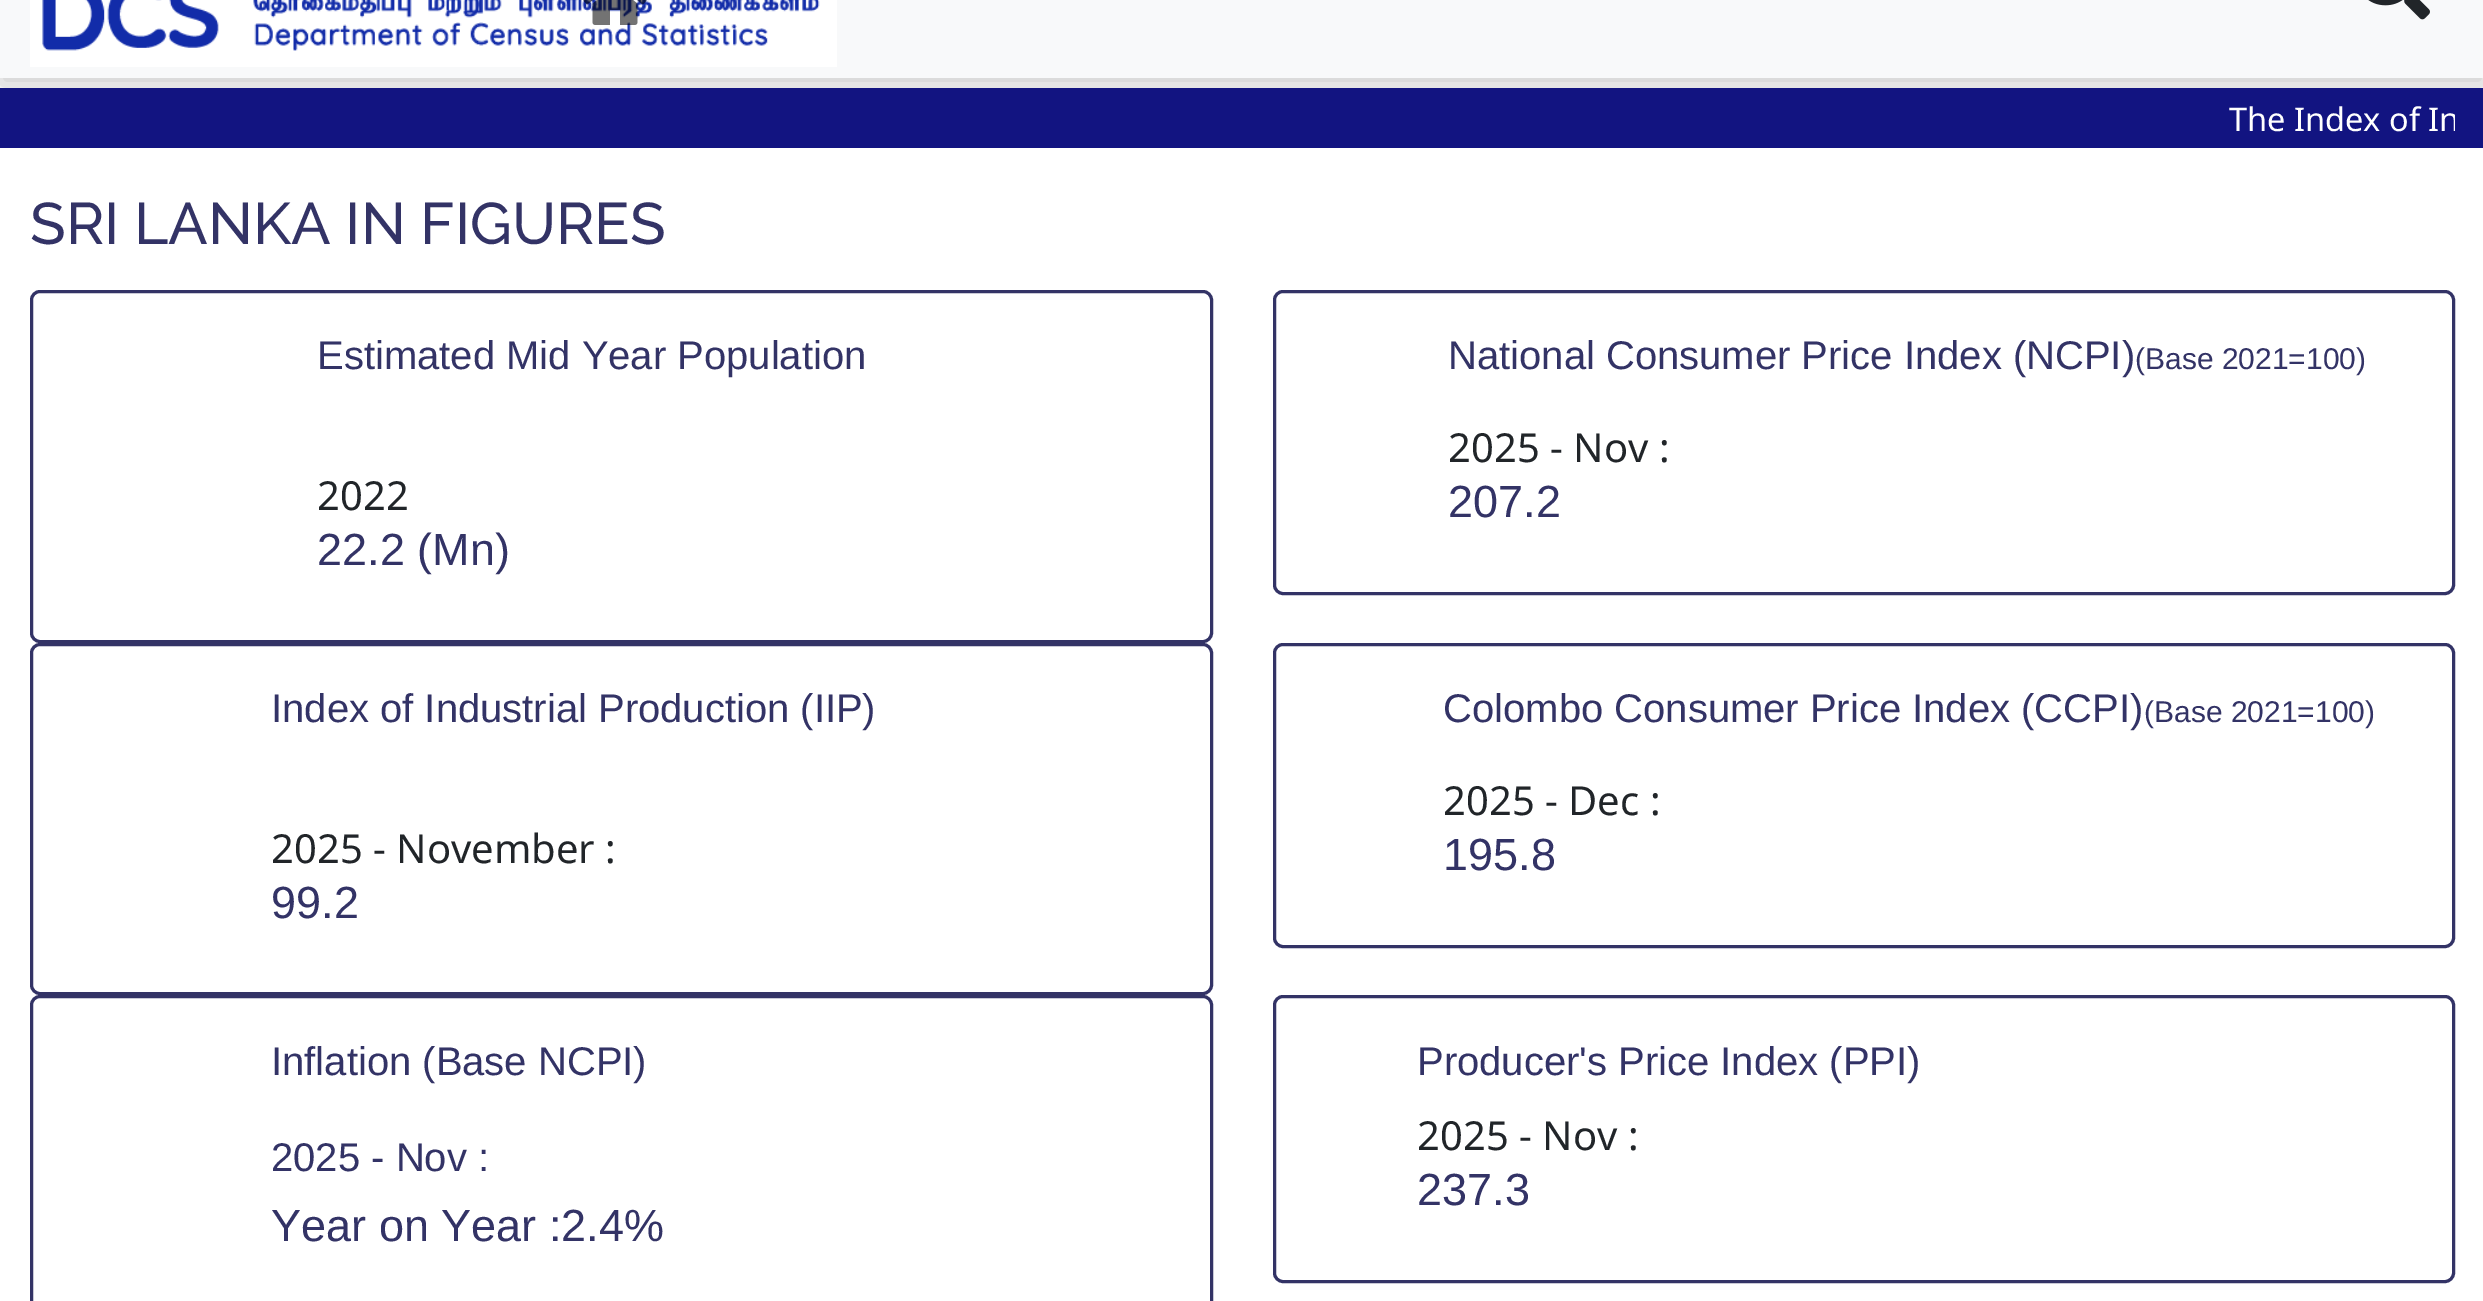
%!PS-Adobe-3.0
%%BoundingBox: 0 0 2483 1301
%%LanguageLevel: 3
%%Pages: 1
%%EndComments
%%BeginProlog
/setalpha { dup .setfillconstantalpha .setstrokeconstantalpha } def
/rrect { 5 dict begin { /r /h /w /y /x } { exch def } forall
  x r add y moveto x w add y 2 copy h add r arct x w add y h add x 1 index r arct
  x y h add x y r arct x y 2 copy exch w add exch r arct closepath end } def
/softshadow { 12 dict begin { /a /b /q /h /w /y /x } { exch def } forall gsave /was 0 def
  9 -2 -9 { dup b mul 4 div /e exch def 1 sub .425 mul 2.718 exch exp 1 add a .99 .min exch div /now exch def
    1 1 now sub 1 was sub div sub setalpha /was now def
    w h .min e 2 mul add 0 gt { x e sub y e sub w e 2 mul add h e 2 mul add
      q e add b .6 mul add w h .min 2 div e add .min 0 .max rrect fill } if } for grestore end } def
/drawimage { 5 dict begin { /h /w /y /x /name } { exch def } forall
  gsave x y translate w h scale
  w h 8 [w 0 0 h 0 0] name (r) file false 3 colorimage grestore end } def
%%EndProlog
%%BeginSetup
<< /PageSize [2483 1301] /PageUsesTransparency true >> setpagedevice
%%EndSetup
%%Page: 1 1
0 .pushpdf14devicefilter
0 1301 translate 1 -1 scale
4 setmiterlimit
1 setgray
0 0 2483 1301 rectfill
0 setgray
0 -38 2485 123 0 12.5 0.2 softshadow
0.973 0.976 0.98 setrgbcolor
0 0 2483 78 rectfill
(images/1.raw) 30 0 807 67 drawimage
(images/2.raw) 583 0 64 25 drawimage
(images/3.raw) 2368 0 62 20 drawimage
0.071 0.078 0.506 setrgbcolor
0 88 2483 60 rectfill
0.2 0.2 0.4 setrgbcolor
3 setlinewidth
31.5 291.5 1180 350 8.5 rrect stroke
1274.5 291.5 1179 302 8.5 rrect stroke
31.5 644.5 1180 349 8.5 rrect stroke
1274.5 644.5 1179 302 8.5 rrect stroke
31.5 996.5 1180 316 8.5 rrect stroke
1274.5 996.5 1179 285 8.5 rrect stroke
gsave
30 88 2425 60 rectclip
/NotoSans-Regular [32.5 0 0 -32.5 0 0] selectfont
1 setgray
2229 131 moveto (The Index of In) show
grestore
/Raleway-Medium [58.5 0 0 -58.5 0 0] selectfont
30 244 moveto (SRI LANKA IN FIGURES) show
/LiberationSans-Regular [40 0 0 -40 0 0] selectfont
317 369 moveto (Estimated Mid Year Population) show
/NotoSans-Regular [40 0 0 -40 0 0] selectfont
0.129 0.145 0.161 setrgbcolor
317 510 moveto (2022) show
/LiberationSans-Regular [45 0 0 -45 0 0] selectfont
0.2 0.2 0.4 setrgbcolor
317 565 moveto (22.2 \(Mn\)) show
/LiberationSans-Regular [40 0 0 -40 0 0] selectfont
1448 369 moveto (National Consumer Price Index \(NCPI\)) show
/LiberationSans-Regular [30 0 0 -30 0 0] selectfont
2135 369 moveto (\(Base 2021=100\)) show
/NotoSans-Regular [40 0 0 -40 0 0] selectfont
0.129 0.145 0.161 setrgbcolor
1448 462 moveto (2025 - Nov :) show
/LiberationSans-Regular [45 0 0 -45 0 0] selectfont
0.2 0.2 0.4 setrgbcolor
1448 517 moveto (207.2) show
/LiberationSans-Regular [40 0 0 -40 0 0] selectfont
271 722 moveto (Index of Industrial Production \(IIP\)) show
/NotoSans-Regular [40 0 0 -40 0 0] selectfont
0.129 0.145 0.161 setrgbcolor
271 863 moveto (2025 - November :) show
/LiberationSans-Regular [45 0 0 -45 0 0] selectfont
0.2 0.2 0.4 setrgbcolor
271 918 moveto (99.2) show
/LiberationSans-Regular [40 0 0 -40 0 0] selectfont
1443 722 moveto (Colombo Consumer Price Index \(CCPI\)) show
/LiberationSans-Regular [30 0 0 -30 0 0] selectfont
2144 722 moveto (\(Base 2021=100\)) show
/NotoSans-Regular [40 0 0 -40 0 0] selectfont
0.129 0.145 0.161 setrgbcolor
1443 815 moveto (2025 - Dec :) show
/LiberationSans-Regular [45 0 0 -45 0 0] selectfont
0.2 0.2 0.4 setrgbcolor
1443 870 moveto (195.8) show
/LiberationSans-Regular [40 0 0 -40 0 0] selectfont
271 1075 moveto (Inflation \(Base NCPI\)) show
271 1171 moveto (2025 - Nov :) show
/LiberationSans-Regular [45 0 0 -45 0 0] selectfont
271 1241 moveto (Year on Year :2.4%) show
/LiberationSans-Regular [40 0 0 -40 0 0] selectfont
1417 1075 moveto (Producer's Price Index \(PPI\)) show
/NotoSans-Regular [40 0 0 -40 0 0] selectfont
0.129 0.145 0.161 setrgbcolor
1417 1150 moveto (2025 - Nov :) show
/LiberationSans-Regular [45 0 0 -45 0 0] selectfont
0.2 0.2 0.4 setrgbcolor
1417 1205 moveto (237.3) show
.poppdf14devicefilter showpage
%%EOF
